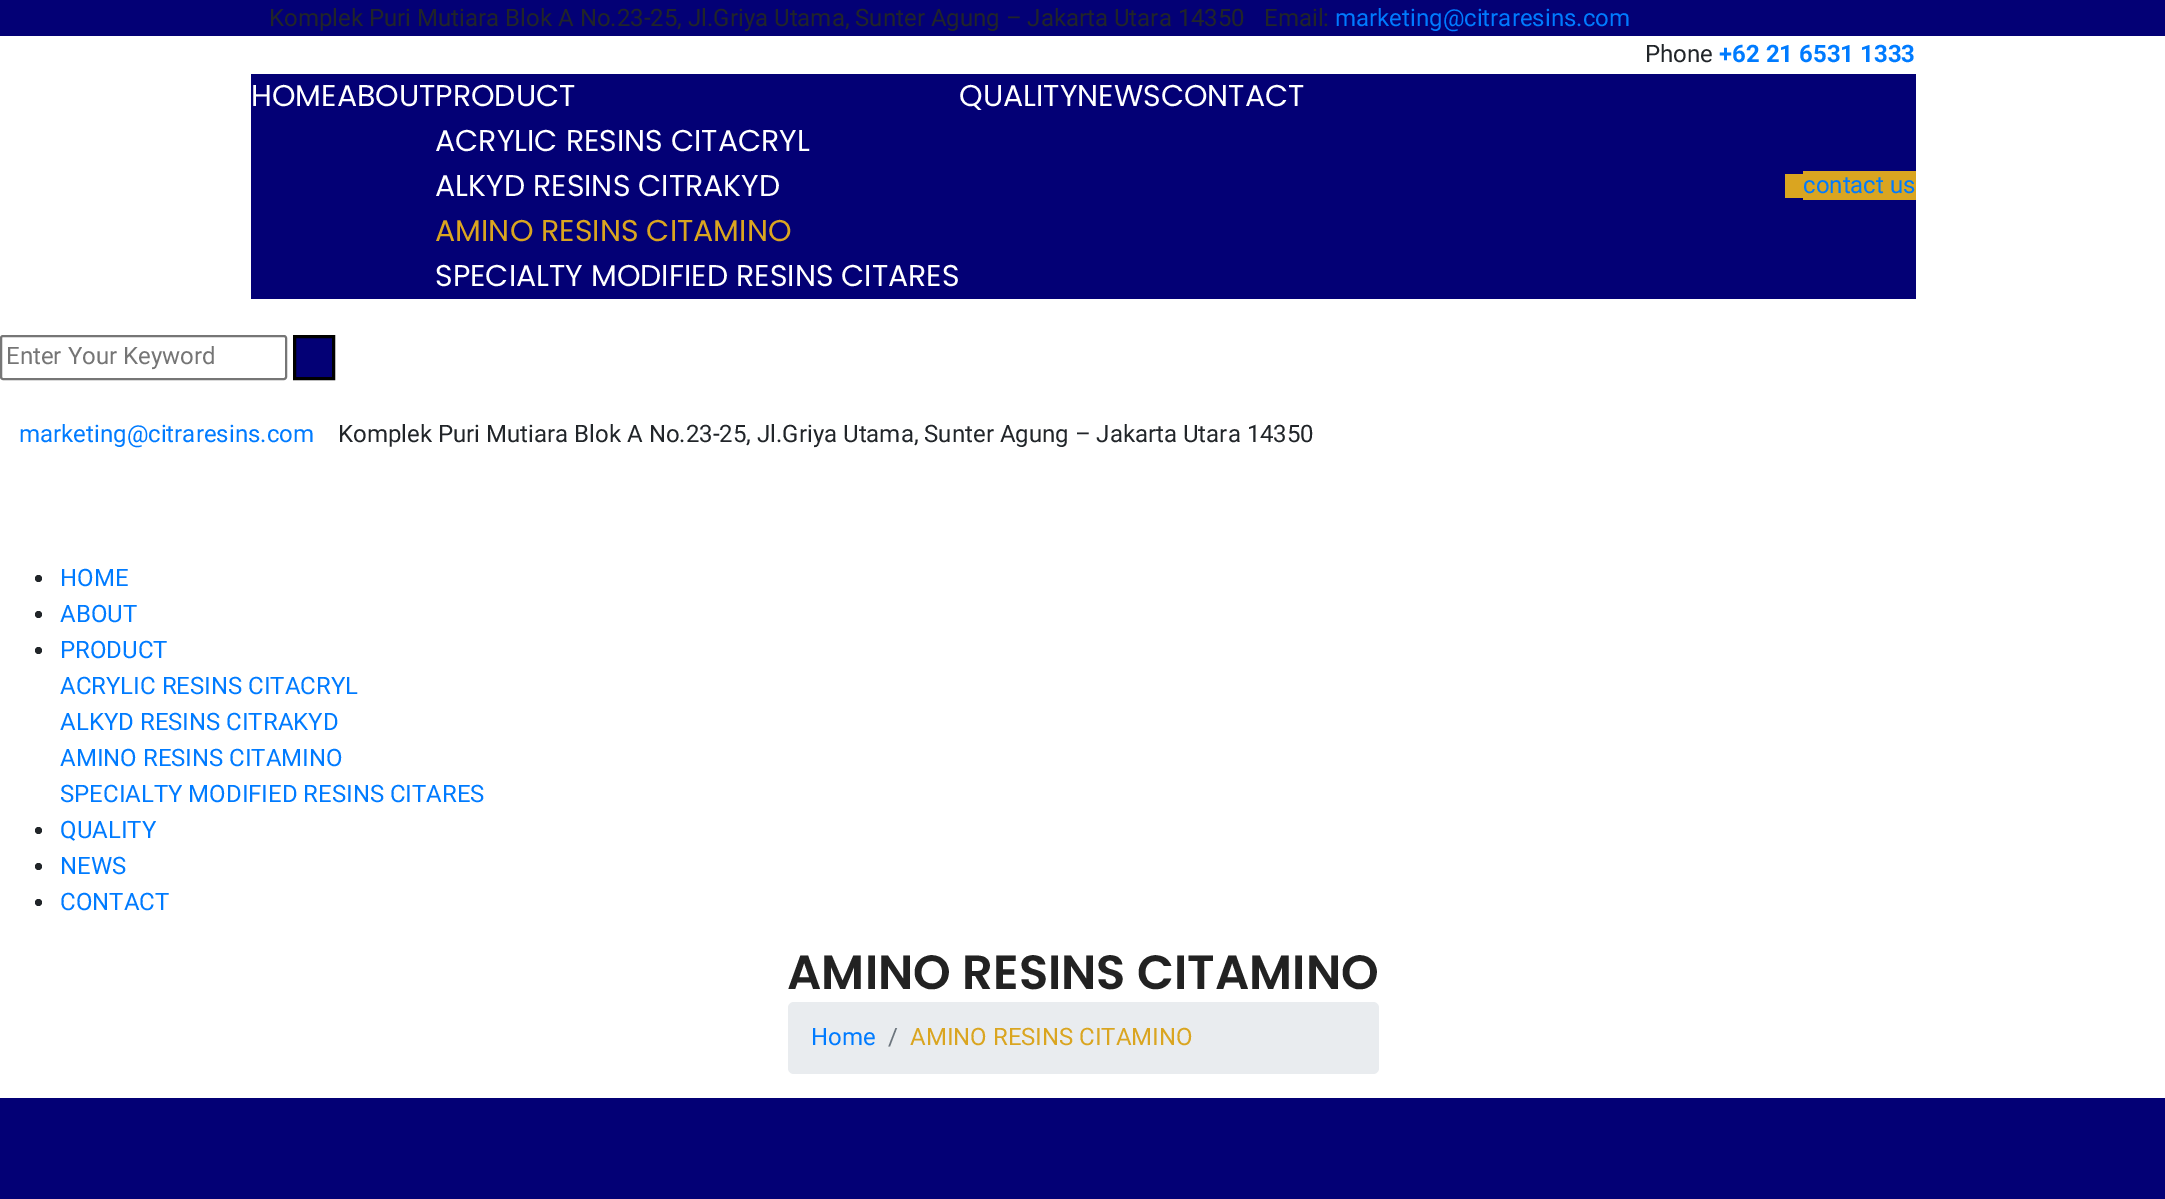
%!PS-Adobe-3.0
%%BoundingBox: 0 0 2165 1199
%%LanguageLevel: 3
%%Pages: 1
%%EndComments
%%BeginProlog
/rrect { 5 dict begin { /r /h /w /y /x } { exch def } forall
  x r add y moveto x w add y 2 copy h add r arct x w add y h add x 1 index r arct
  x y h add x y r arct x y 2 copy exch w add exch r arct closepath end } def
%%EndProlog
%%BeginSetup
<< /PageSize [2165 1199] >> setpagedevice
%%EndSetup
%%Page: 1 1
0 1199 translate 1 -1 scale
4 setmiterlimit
1 setgray
0 0 2165 1199 rectfill
0.012 0 0.459 setrgbcolor
0 0 2165 36 rectfill
251 74 1665 225 rectfill
0.855 0.647 0.125 setrgbcolor
1785 174 18 24 rectfill
1803 171 113 29 rectfill
0.463 setgray
2 setlinewidth
1 336 285 43 2 rrect stroke
0.012 0 0.459 setrgbcolor
newpath 294.5 336.5 moveto 333.5 336.5 lineto 333.5 378.5 lineto 294.5 378.5 lineto closepath gsave fill grestore
0 setgray
3 setlinewidth
stroke
0.129 0.145 0.161 setrgbcolor
newpath 38.5 578.5 3.5 0 360 arc closepath fill
newpath 38.5 614.5 3.5 0 360 arc closepath fill
newpath 38.5 650.5 3.5 0 360 arc closepath fill
newpath 38.5 830.5 3.5 0 360 arc closepath fill
newpath 38.5 866.5 3.5 0 360 arc closepath fill
newpath 38.5 902.5 3.5 0 360 arc closepath fill
0.914 0.925 0.937 setrgbcolor
788 1002 591 72 6 rrect fill
0.012 0 0.459 setrgbcolor
0 1098 2165 101 rectfill
/Roboto-Regular [24 0 0 -24 0 0] selectfont
0.129 0.145 0.161 setrgbcolor
269 26 moveto (Komplek Puri Mutiara Blok A No.23-25, Jl.Griya Utama, Sunter Agung – Jakarta Utara 14350) show
1264 26 moveto (Email:) show
0 0.482 1 setrgbcolor
1335 26 moveto (marketing@citraresins.com) show
0.129 0.145 0.161 setrgbcolor
1645 62 moveto (Phone) show
/Roboto-Bold [24 0 0 -24 0 0] selectfont
0 0.482 1 setrgbcolor
1719 62 moveto (+62 21 6531 1333) show
/Poppins-Regular [30 0 0 -30 0 0] selectfont
1 setgray
251 106 moveto (HOMEABOUTPRODUCT) show
959 106 moveto (QUALITYNEWSCONTACT) show
435 151 moveto (ACRYLIC RESINS CITACRYL) show
435 196 moveto (ALKYD RESINS CITRAKYD) show
0.855 0.647 0.125 setrgbcolor
435 241 moveto (AMINO RESINS CITAMINO) show
1 setgray
435 286 moveto (SPECIALTY MODIFIED RESINS CITARES) show
/Roboto-Regular [24 0 0 -24 0 0] selectfont
0 0.482 1 setrgbcolor
1803 193 moveto (contact us) show
0.459 setgray
6 364 moveto (Enter Your Keyword) show
0 0.482 1 setrgbcolor
19 442 moveto (marketing@citraresins.com) show
0.129 0.145 0.161 setrgbcolor
338 442 moveto (Komplek Puri Mutiara Blok A No.23-25, Jl.Griya Utama, Sunter Agung – Jakarta Utara 14350) show
0 0.482 1 setrgbcolor
60 586 moveto (HOME) show
60 622 moveto (ABOUT) show
60 658 moveto (PRODUCT) show
60 694 moveto (ACRYLIC RESINS CITACRYL) show
60 730 moveto (ALKYD RESINS CITRAKYD) show
60 766 moveto (AMINO RESINS CITAMINO) show
60 802 moveto (SPECIALTY MODIFIED RESINS CITARES) show
60 838 moveto (QUALITY) show
60 874 moveto (NEWS) show
60 910 moveto (CONTACT) show
/Poppins-SemiBold [48 0 0 -48 0 0] selectfont
0.133 setgray
787 989 moveto (AMINO RESINS CITAMINO) show
/Roboto-Regular [24 0 0 -24 0 0] selectfont
0 0.482 1 setrgbcolor
811 1045 moveto (Home) show
0.424 0.459 0.49 setrgbcolor
888 1045 moveto (/) show
0.855 0.647 0.125 setrgbcolor
910 1045 moveto (AMINO RESINS CITAMINO) show
showpage
%%EOF
